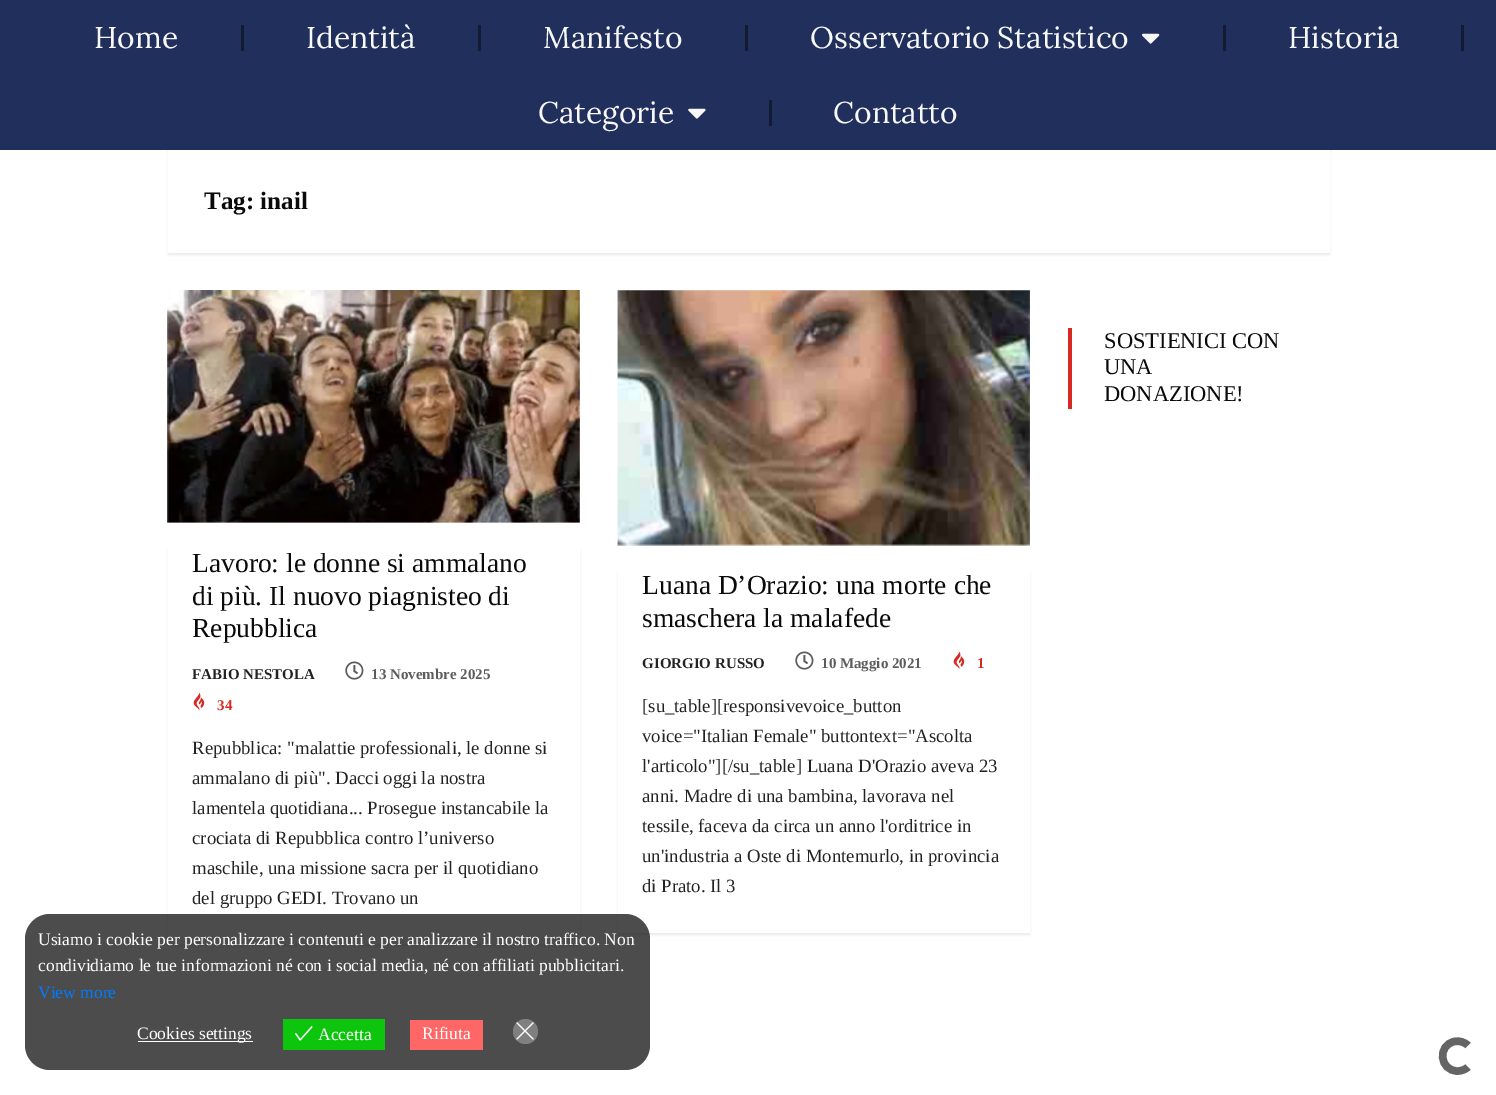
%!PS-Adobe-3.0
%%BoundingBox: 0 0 1496 1095
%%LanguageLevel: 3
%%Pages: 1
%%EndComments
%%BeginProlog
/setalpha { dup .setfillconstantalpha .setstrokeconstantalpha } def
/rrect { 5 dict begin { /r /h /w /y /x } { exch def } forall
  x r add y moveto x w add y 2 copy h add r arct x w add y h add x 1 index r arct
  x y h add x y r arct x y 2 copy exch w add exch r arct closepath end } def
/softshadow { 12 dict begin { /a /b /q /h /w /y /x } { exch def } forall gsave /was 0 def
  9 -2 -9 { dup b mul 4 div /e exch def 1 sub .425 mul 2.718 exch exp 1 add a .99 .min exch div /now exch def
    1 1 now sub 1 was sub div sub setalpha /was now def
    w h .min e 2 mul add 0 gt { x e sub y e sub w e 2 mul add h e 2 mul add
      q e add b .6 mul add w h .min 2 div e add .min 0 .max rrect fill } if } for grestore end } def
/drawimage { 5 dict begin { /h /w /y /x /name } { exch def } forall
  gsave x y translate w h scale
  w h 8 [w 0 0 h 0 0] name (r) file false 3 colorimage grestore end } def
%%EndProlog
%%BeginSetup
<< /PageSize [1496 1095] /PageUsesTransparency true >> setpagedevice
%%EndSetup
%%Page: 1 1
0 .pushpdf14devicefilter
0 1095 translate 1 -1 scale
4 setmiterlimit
1 setgray
0 0 1496 1095 rectfill
0 setgray
168 150 1162 105 0 1 0.08 softshadow
0.125 0.184 0.357 setrgbcolor
0 0 1496 150 rectfill
0.075 0.106 0.196 setrgbcolor
241 25 3 26 rectfill
478 25 3 26 rectfill
745 25 3 26 rectfill
(images/1.raw) 1142 33 18 11 drawimage
1223 25 3 26 rectfill
1461 25 3 26 rectfill
(images/2.raw) 688 108 18 11 drawimage
769 100 3 26 rectfill
1 setgray
168 150 1162 103 rectfill
0.843 0.161 0.141 setrgbcolor
1068 328 4 81 rectfill
(images/3.raw) 167 290 413 233 drawimage
gsave
newpath 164 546 moveto 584 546 lineto 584 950 lineto 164 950 lineto closepath 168 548 moveto 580 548 lineto 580 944 lineto 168 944 lineto closepath eoclip newpath
0 setgray
168 550 412 396 0 1 0.08 softshadow
grestore
(images/4.raw) 345 661 19 19 drawimage
(images/5.raw) 193 692 12 19 drawimage
(images/6.raw) 617 290 413 256 drawimage
gsave
newpath 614 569 moveto 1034 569 lineto 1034 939 lineto 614 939 lineto closepath 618 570 moveto 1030 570 lineto 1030 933 lineto 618 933 lineto closepath eoclip newpath
0 setgray
618 573 412 362 0 1 0.08 softshadow
grestore
(images/4.raw) 795 651 19 19 drawimage
(images/7.raw) 953 651 12 19 drawimage
0.7 setalpha
0 setgray
25 914 625 156 25 rrect fill
1 setalpha
1 setgray
138 1041 115 1 rectfill
0.055 0.773 0.055 setrgbcolor
283 1019 102 31 rectfill
(images/8.raw) 295 1026 18 15 drawimage
1 0.4 0.4 setrgbcolor
410 1020 73 30 rectfill
0.502 setgray
newpath 525.5 1031.5 12.5 0 360 arc closepath fill
(images/9.raw) 516 1022 18 18 drawimage
0.396 setgray
7.5 setlinewidth
newpath 1468 1067 moveto 1465.5 1069.5 1461.5 1071 1457.5 1071 curveto 1439.5 1071 1437 1045 1454.5 1041.5 curveto 1459.5 1040.5 1464.5 1042 1468 1045.5 curveto stroke
/Lora-Regular [30 0 0 -30 0 0] selectfont
0.973 setgray
94 48 moveto (Home) show
306 48 moveto (Identità) show
543 48 moveto (Manifesto) show
810 48 moveto (Osservatorio Statistico) show
1288 48 moveto (Historia) show
538 123 moveto (Categorie) show
833 123 moveto (Contatto) show
/LiberationSerif-Bold [25 0 0 -25 0 0] selectfont
0.039 setgray
204 209 moveto (Tag: inail) show
/LiberationSerif-Regular [22.5 0 0 -22.5 0 0] selectfont
1104 348 moveto (SOSTIENICI CON) show
1104 374 moveto (UNA) show
1104 401 moveto (DONAZIONE!) show
/LiberationSerif-Regular [27.5 0 0 -27.5 0 0] selectfont
192 572 moveto (Lavoro: le donne si ammalano) show
192 605 moveto (di più. Il nuovo piagnisteo di) show
192 637 moveto (Repubblica) show
/LiberationSerif-Bold [15 0 0 -15 0 0] selectfont
0.137 setgray
192 679 moveto (FABIO NESTOLA) show
0.361 setgray
371 679 moveto (13 Novembre 2025) show
0.843 0.161 0.141 setrgbcolor
217 710 moveto (34) show
/LiberationSerif-Regular [18.75 0 0 -18.75 0 0] selectfont
0.137 setgray
192 754 moveto (Repubblica: "malattie professionali, le donne si) show
192 784 moveto (ammalano di più". Dacci oggi la nostra) show
192 814 moveto (lamentela quotidiana... Prosegue instancabile la) show
192 844 moveto (crociata di Repubblica contro l’universo) show
192 874 moveto (maschile, una missione sacra per il quotidiano) show
192 904 moveto (del gruppo GEDI. Trovano un) show
/LiberationSerif-Regular [27.5 0 0 -27.5 0 0] selectfont
0.039 setgray
642 594 moveto (Luana D’Orazio: una morte che) show
642 627 moveto (smaschera la malafede) show
/LiberationSerif-Bold [15 0 0 -15 0 0] selectfont
0.137 setgray
642 668 moveto (GIORGIO RUSSO) show
0.361 setgray
821 668 moveto (10 Maggio 2021) show
0.843 0.161 0.141 setrgbcolor
977 668 moveto (1) show
/LiberationSerif-Regular [18.75 0 0 -18.75 0 0] selectfont
0.137 setgray
642 712 moveto ([su_table][responsivevoice_button) show
642 742 moveto (voice="Italian Female" buttontext="Ascolta) show
642 772 moveto (l'articolo"][/su_table] Luana D'Orazio aveva 23) show
642 802 moveto (anni. Madre di una bambina, lavorava nel) show
642 832 moveto (tessile, faceva da circa un anno l'orditrice in) show
642 862 moveto (un'industria a Oste di Montemurlo, in provincia) show
642 892 moveto (di Prato. Il 3) show
/LiberationSerif-Regular [17.5 0 0 -17.5 0 0] selectfont
1 setgray
38 945 moveto (Usiamo i cookie per personalizzare i contenuti e per analizzare il nostro traffico. Non) show
38 971 moveto (condividiamo le tue informazioni né con i social media, né con affiliati pubblicitari.) show
0 0.482 1 setrgbcolor
38 998 moveto (View more) show
1 setgray
137 1039 moveto (Cookies settings) show
318 1040 moveto (Accetta) show
422 1039 moveto (Rifiuta) show
.poppdf14devicefilter showpage
%%EOF
